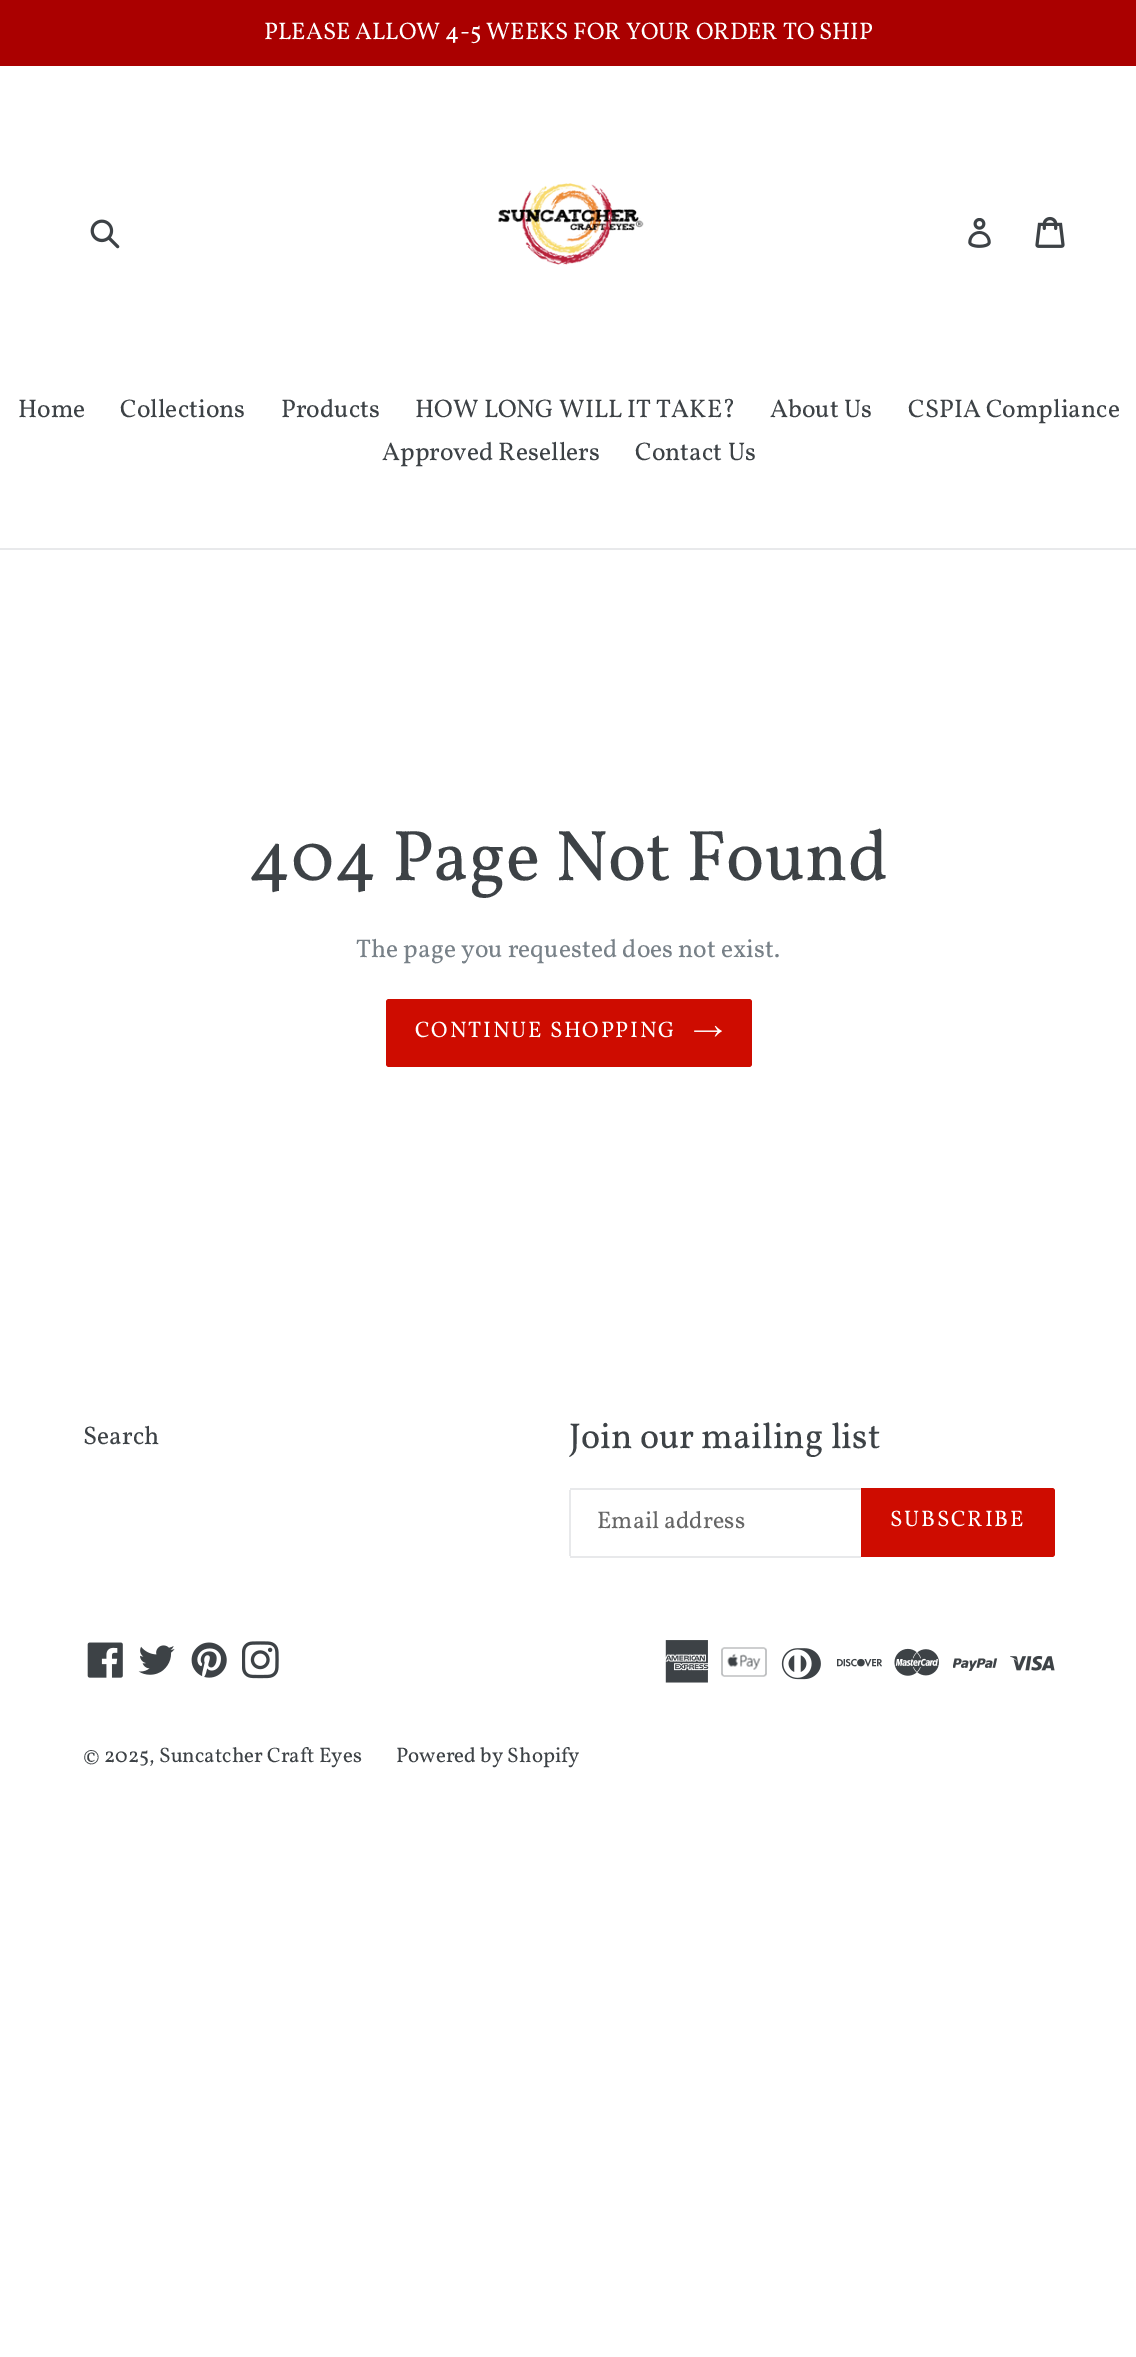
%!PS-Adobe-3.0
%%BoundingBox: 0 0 1136 2357
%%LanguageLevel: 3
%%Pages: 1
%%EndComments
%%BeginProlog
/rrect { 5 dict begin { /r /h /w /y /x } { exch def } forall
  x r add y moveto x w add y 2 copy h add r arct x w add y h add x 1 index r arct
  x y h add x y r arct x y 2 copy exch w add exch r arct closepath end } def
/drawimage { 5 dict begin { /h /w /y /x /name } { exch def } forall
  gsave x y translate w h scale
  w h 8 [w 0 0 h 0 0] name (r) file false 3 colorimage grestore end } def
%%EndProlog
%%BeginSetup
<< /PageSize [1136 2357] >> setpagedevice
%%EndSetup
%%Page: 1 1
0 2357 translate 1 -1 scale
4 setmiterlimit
1 setgray
0 0 1136 2357 rectfill
0.667 0 0 setrgbcolor
0 0 1136 66 rectfill
(images/1.raw) 90 219 30 30 drawimage
(images/2.raw) 498 183 146 82 drawimage
(images/3.raw) 968 218 23 30 drawimage
(images/4.raw) 1035 216 30 32 drawimage
0.91 0.914 0.922 setrgbcolor
0 548 1136 2 rectfill
0.808 0.047 0 setrgbcolor
386 999 366 68 3 rrect fill
(images/5.raw) 694 1025 28 12 drawimage
0.91 0.914 0.922 setrgbcolor
570 1488 291 2 rectfill
570 1556 291 2 rectfill
569 1490 2 66 rectfill
0.808 0.047 0 setrgbcolor
newpath 861 1488 moveto 1052 1488 lineto 1053.5 1488 1055 1489.5 1055 1491 curveto 1055 1554 lineto 1055 1555.5 1053.5 1557 1052 1557 curveto 861 1557 lineto closepath fill
(images/6.raw) 87 1642 36 36 drawimage
(images/7.raw) 138 1645 37 30 drawimage
(images/8.raw) 191 1642 36 36 drawimage
(images/9.raw) 242 1641 37 38 drawimage
(images/10.raw) 665 1640 44 43 drawimage
(images/11.raw) 721 1647 46 30 drawimage
(images/12.raw) 781 1648 40 32 drawimage
(images/13.raw) 837 1658 45 9 drawimage
(images/14.raw) 894 1648 45 28 drawimage
(images/15.raw) 953 1658 45 13 drawimage
(images/16.raw) 1010 1656 45 15 drawimage
/Vollkorn-Regular [24 0 0 -24 0 0] selectfont
1 setgray
264 39 moveto (PLEASE ALLOW 4-5 WEEKS FOR YOUR ORDER TO SHIP) show
/Vollkorn-Regular [25.5 0 0 -25.5 0 0] selectfont
0.239 0.259 0.275 setrgbcolor
18 417 moveto (Home) show
120 417 moveto (Collections) show
281 417 moveto (Products) show
415 417 moveto (HOW LONG WILL IT TAKE?) show
770 417 moveto (About Us) show
908 417 moveto (CSPIA Compliance) show
382 460 moveto (Approved Resellers) show
635 460 moveto (Contact Us) show
/Vollkorn-Regular [72 0 0 -72 0 0] selectfont
248 880 moveto (404 Page Not Found) show
/Vollkorn-Regular [25.5 0 0 -25.5 0 0] selectfont
0.471 0.506 0.533 setrgbcolor
356 957 moveto (The page you requested does not exist.) show
/Vollkorn-Regular [22.5 0 0 -22.5 0 0] selectfont
1 setgray
415 1037 moveto 1.75 0 (CONTINUE SHOPPING) ashow
/Vollkorn-Regular [25.5 0 0 -25.5 0 0] selectfont
0.239 0.259 0.275 setrgbcolor
83 1444 moveto (Search) show
/Vollkorn-Regular [36 0 0 -36 0 0] selectfont
569 1448 moveto (Join our mailing list) show
/Vollkorn-Regular [24 0 0 -24 0 0] selectfont
0.4 setgray
597 1528 moveto (Email address) show
/Vollkorn-Regular [22.5 0 0 -22.5 0 0] selectfont
1 setgray
890 1526 moveto 1.75 0 (SUBSCRIBE) ashow
/Vollkorn-Regular [21 0 0 -21 0 0] selectfont
0.239 0.259 0.275 setrgbcolor
83 1762 moveto (© 2025, Suncatcher Craft Eyes) show
396 1762 moveto (Powered by Shopify) show
showpage
%%EOF
